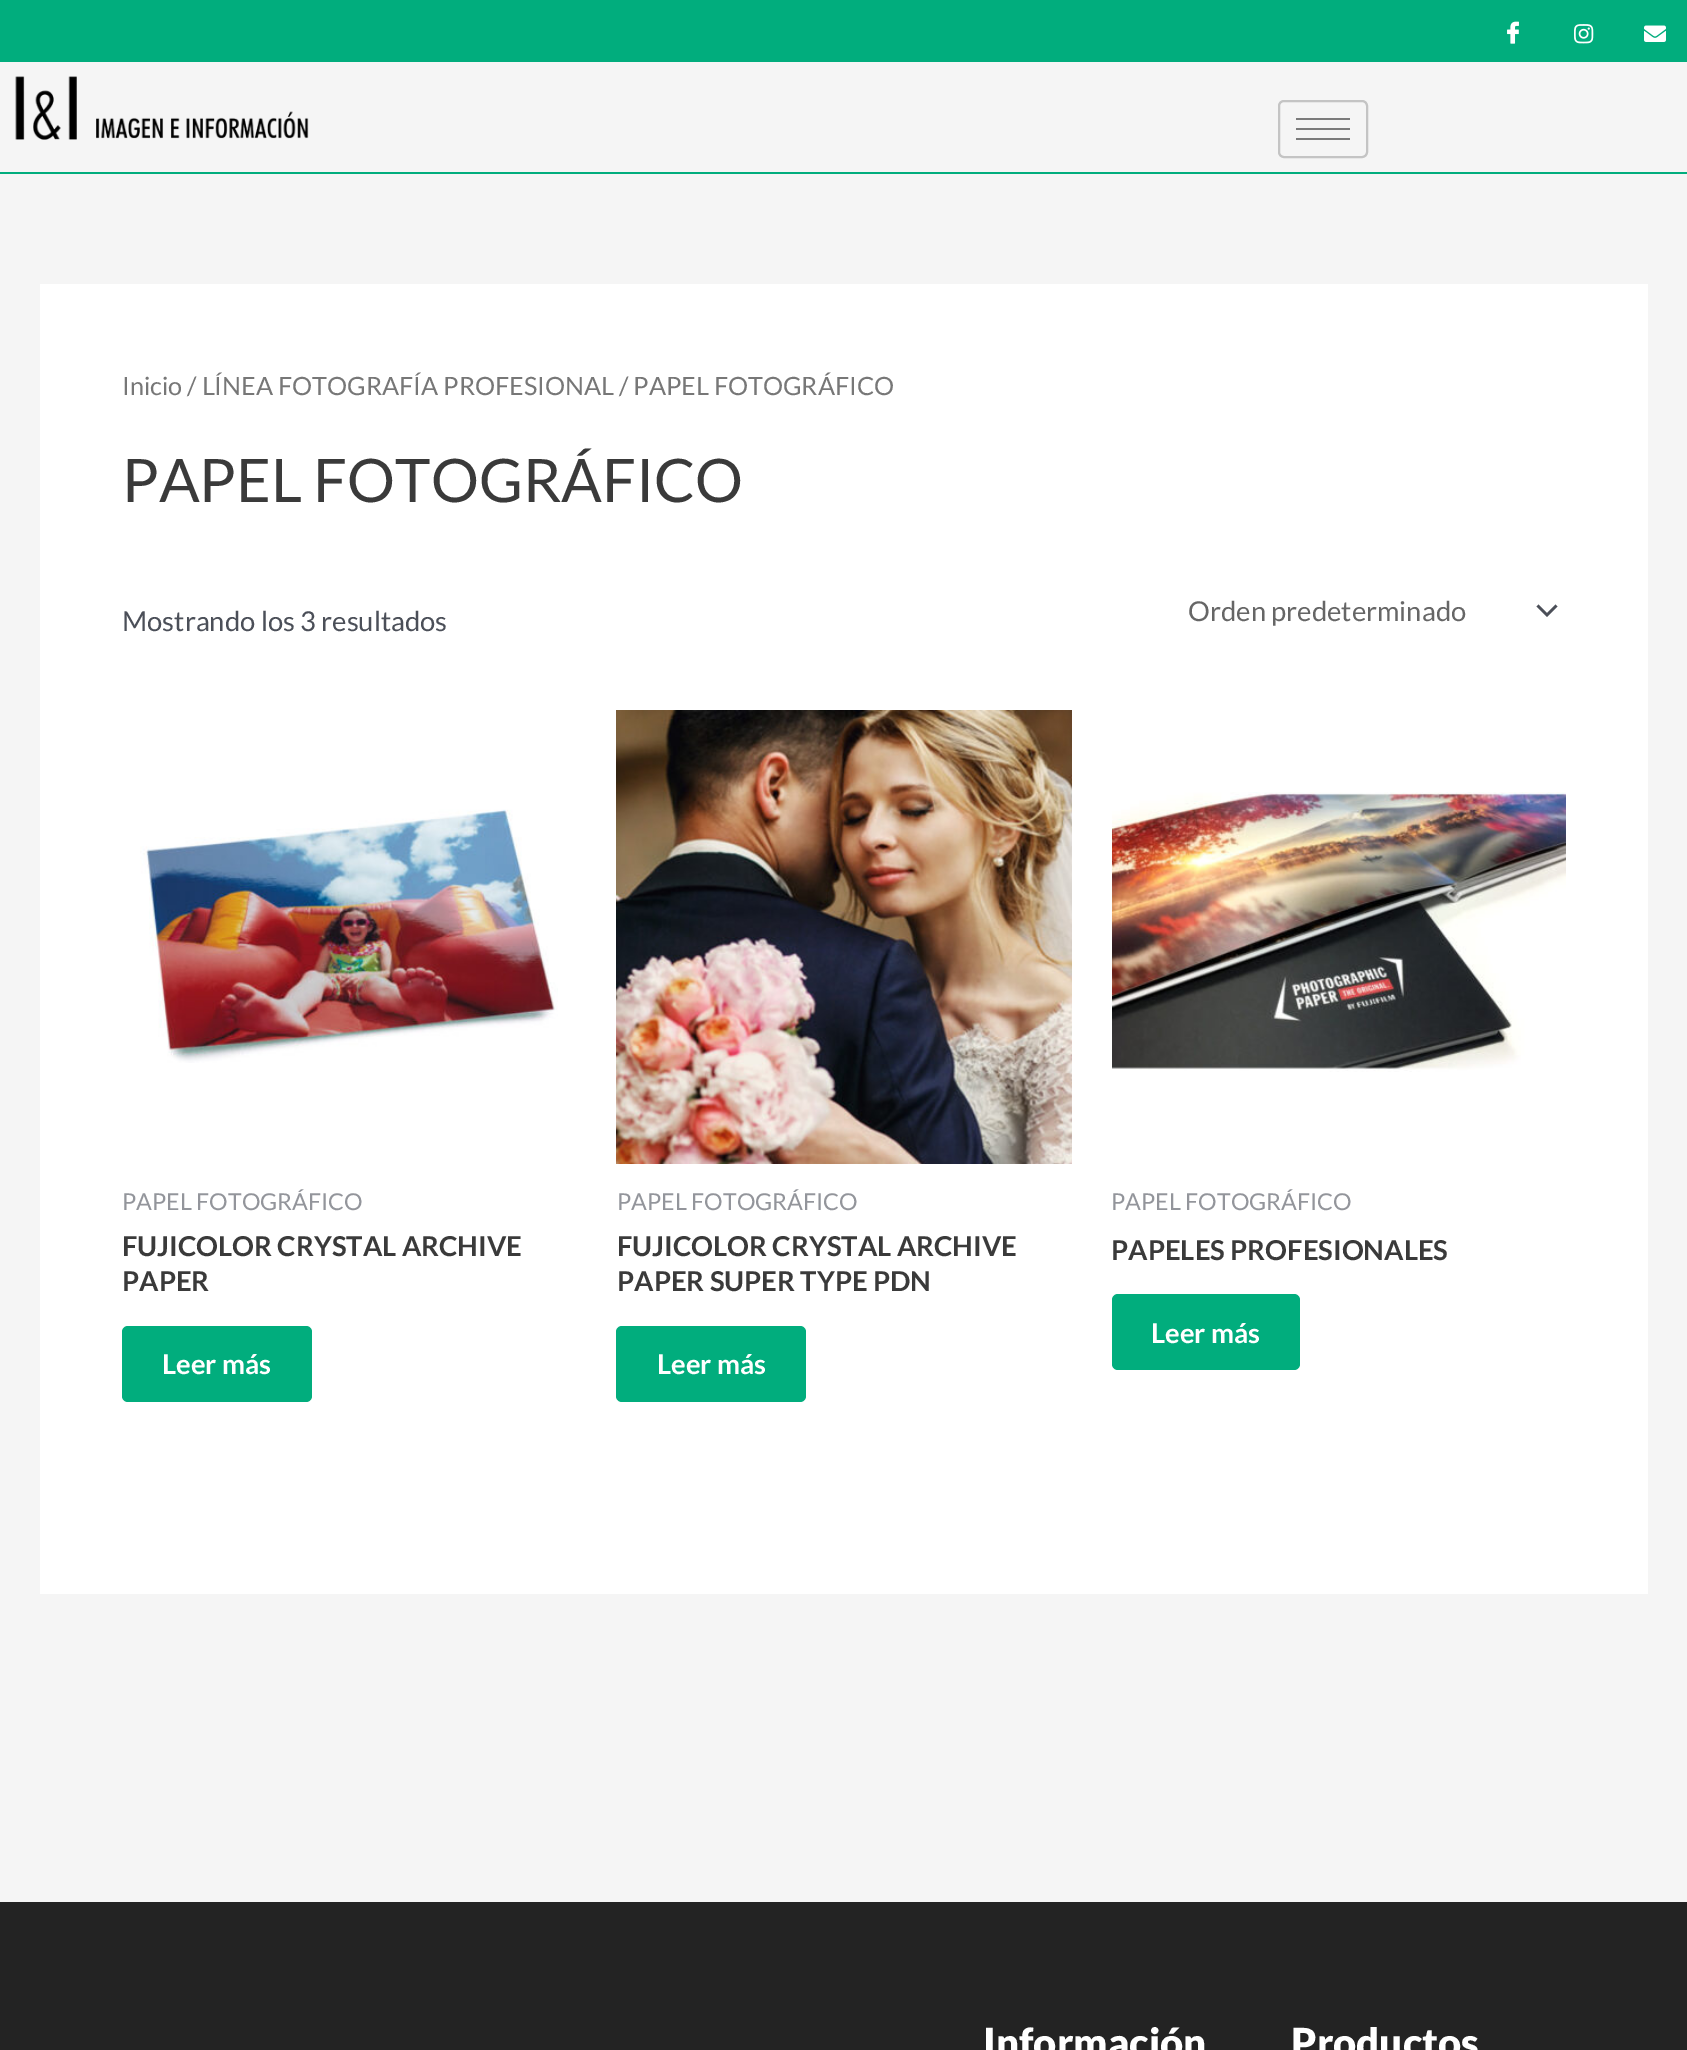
%!PS-Adobe-3.0
%%BoundingBox: 0 0 1687 2050
%%LanguageLevel: 3
%%Pages: 1
%%EndComments
%%BeginProlog
/rrect { 5 dict begin { /r /h /w /y /x } { exch def } forall
  x r add y moveto x w add y 2 copy h add r arct x w add y h add x 1 index r arct
  x y h add x y r arct x y 2 copy exch w add exch r arct closepath end } def
/drawimage { 5 dict begin { /h /w /y /x /name } { exch def } forall
  gsave x y translate w h scale
  w h 8 [w 0 0 h 0 0] name (r) file false 3 colorimage grestore end } def
%%EndProlog
%%BeginSetup
<< /PageSize [1687 2050] >> setpagedevice
%%EndSetup
%%Page: 1 1
0 2050 translate 1 -1 scale
4 setmiterlimit
0.961 setgray
0 0 1687 2050 rectfill
0.004 0.678 0.49 setrgbcolor
0 0 1687 62 rectfill
(images/1.raw) 1507 21 12 23 drawimage
(images/2.raw) 1574 24 20 20 drawimage
(images/3.raw) 1644 25 22 17 drawimage
0 172 1687 2 rectfill
(images/4.raw) 15 76 294 64 drawimage
0.769 setgray
2 setlinewidth
1279 101 88 56 5 rrect stroke
0.482 setgray
1296 118 54 2 rectfill
1296 128 54 2 rectfill
1296 138 54 2 rectfill
1 setgray
40 284 1608 1310 rectfill
0.294 0.31 0.345 setrgbcolor
newpath 1536.5 606.5 moveto 1547 617 lineto 1557.5 606.5 lineto 1555.5 604.5 lineto 1547 613 lineto 1538.5 604.5 lineto closepath fill
(images/5.raw) 140 809 418 254 drawimage
0.004 0.678 0.49 setrgbcolor
122 1326 190 76 6 rrect fill
(images/6.raw) 616 710 456 454 drawimage
616 1326 190 76 6 rrect fill
(images/7.raw) 1112 792 454 280 drawimage
1112 1294 188 76 6 rrect fill
0.137 setgray
0 1902 1687 148 rectfill
/Lato-Regular [25.2 0 0 -25.2 0 0] selectfont
0.467 setgray
122 395 moveto (Inicio / LÍNEA FOTOGRAFÍA PROFESIONAL / PAPEL FOTOGRÁFICO) show
/Lato-Regular [60 0 0 -60 0 0] selectfont
0.227 setgray
122 502 moveto (PAPEL FOTOGRÁFICO) show
/Lato-Regular [27.4 0 0 -27.4 0 0] selectfont
0.294 0.31 0.345 setrgbcolor
122 631 moveto (Mostrando los 3 resultados) show
0.4 setgray
1188 621 moveto (Orden predeterminado) show
/Lato-Regular [23.25 0 0 -23.25 0 0] selectfont
0.576 0.584 0.608 setrgbcolor
122 1210 moveto (PAPEL FOTOGRÁFICO) show
/Lato-Bold [27.4 0 0 -27.4 0 0] selectfont
0.227 setgray
122 1256 moveto (FUJICOLOR CRYSTAL ARCHIVE) show
122 1291 moveto (PAPER) show
1 setgray
162 1374 moveto (Leer más) show
/Lato-Regular [23.25 0 0 -23.25 0 0] selectfont
0.576 0.584 0.608 setrgbcolor
617 1210 moveto (PAPEL FOTOGRÁFICO) show
/Lato-Bold [27.4 0 0 -27.4 0 0] selectfont
0.227 setgray
617 1256 moveto (FUJICOLOR CRYSTAL ARCHIVE) show
617 1291 moveto (PAPER SUPER TYPE PDN) show
1 setgray
657 1374 moveto (Leer más) show
/Lato-Regular [23.25 0 0 -23.25 0 0] selectfont
0.576 0.584 0.608 setrgbcolor
1111 1210 moveto (PAPEL FOTOGRÁFICO) show
/Lato-Bold [27.4 0 0 -27.4 0 0] selectfont
0.227 setgray
1111 1260 moveto (PAPELES PROFESIONALES) show
1 setgray
1151 1343 moveto (Leer más) show
/Lato-Black [40 0 0 -40 0 0] selectfont
983 2057 moveto (Información) show
1291 2057 moveto (Productos) show
showpage
%%EOF
